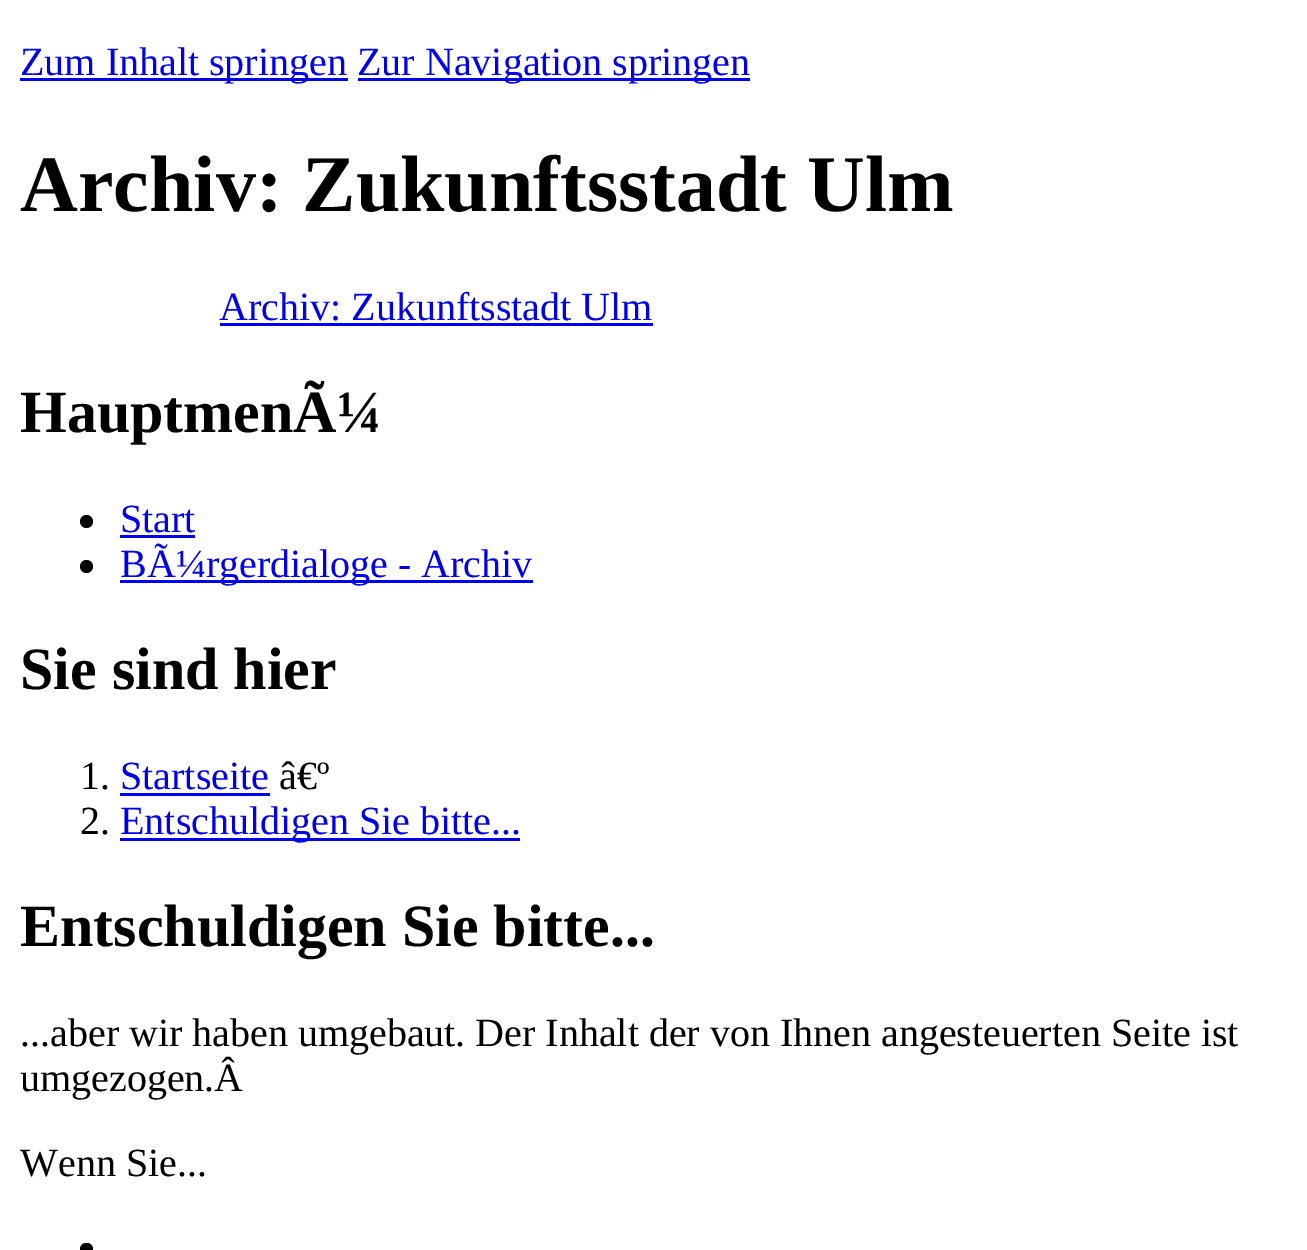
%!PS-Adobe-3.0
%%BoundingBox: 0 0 1307 1250
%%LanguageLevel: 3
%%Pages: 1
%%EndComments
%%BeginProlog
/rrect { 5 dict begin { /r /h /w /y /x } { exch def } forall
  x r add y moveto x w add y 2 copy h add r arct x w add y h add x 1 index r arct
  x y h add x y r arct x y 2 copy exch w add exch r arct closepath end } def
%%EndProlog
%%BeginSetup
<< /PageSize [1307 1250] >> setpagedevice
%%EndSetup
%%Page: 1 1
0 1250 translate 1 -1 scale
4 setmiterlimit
1 setgray
0 0 1307 1250 rectfill
0 0 0.933 setrgbcolor
20 78 328 3 rectfill
358 78 392 3 rectfill
220 323 433 3 rectfill
0 setgray
newpath 86.5 521.5 6.5 0 360 arc closepath fill
0 0 0.933 setrgbcolor
120 535 75 3 rectfill
0 setgray
newpath 86.5 566.5 6.5 0 360 arc closepath fill
0 0 0.933 setrgbcolor
120 580 413 3 rectfill
120 793 150 3 rectfill
120 838 400 3 rectfill
0 setgray
80 1243 13 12 6 rrect fill
/LiberationSerif-Regular [40 0 0 -40 0 0] selectfont
0 0 0.933 setrgbcolor
20 75 moveto (Zum Inhalt springen) show
357 75 moveto (Zur Navigation springen) show
/LiberationSerif-Bold [80 0 0 -80 0 0] selectfont
0 setgray
20 211 moveto (Archiv: Zukunftsstadt Ulm) show
/LiberationSerif-Regular [40 0 0 -40 0 0] selectfont
0 0 0.933 setrgbcolor
219 320 moveto (Archiv: Zukunftsstadt Ulm) show
/LiberationSerif-Bold [60 0 0 -60 0 0] selectfont
0 setgray
20 432 moveto (HauptmenÃ¼) show
/LiberationSerif-Regular [40 0 0 -40 0 0] selectfont
0 0 0.933 setrgbcolor
120 532 moveto (Start) show
120 577 moveto (BÃ¼rgerdialoge - Archiv) show
/LiberationSerif-Bold [60 0 0 -60 0 0] selectfont
0 setgray
20 689 moveto (Sie sind hier) show
/LiberationSerif-Regular [40 0 0 -40 0 0] selectfont
80 789 moveto (1.) show
0 0 0.933 setrgbcolor
120 789 moveto (Startseite) show
0 setgray
279 789 moveto (â€º) show
80 834 moveto (2.) show
0 0 0.933 setrgbcolor
120 834 moveto (Entschuldigen Sie bitte...) show
/LiberationSerif-Bold [60 0 0 -60 0 0] selectfont
0 setgray
20 946 moveto (Entschuldigen Sie bitte...) show
/LiberationSerif-Regular [40 0 0 -40 0 0] selectfont
20 1046 moveto (...aber wir haben umgebaut. Der Inhalt der von Ihnen angesteuerten Seite ist) show
20 1091 moveto (umgezogen.Â) show
20 1176 moveto (Wenn Sie...) show
showpage
%%EOF
